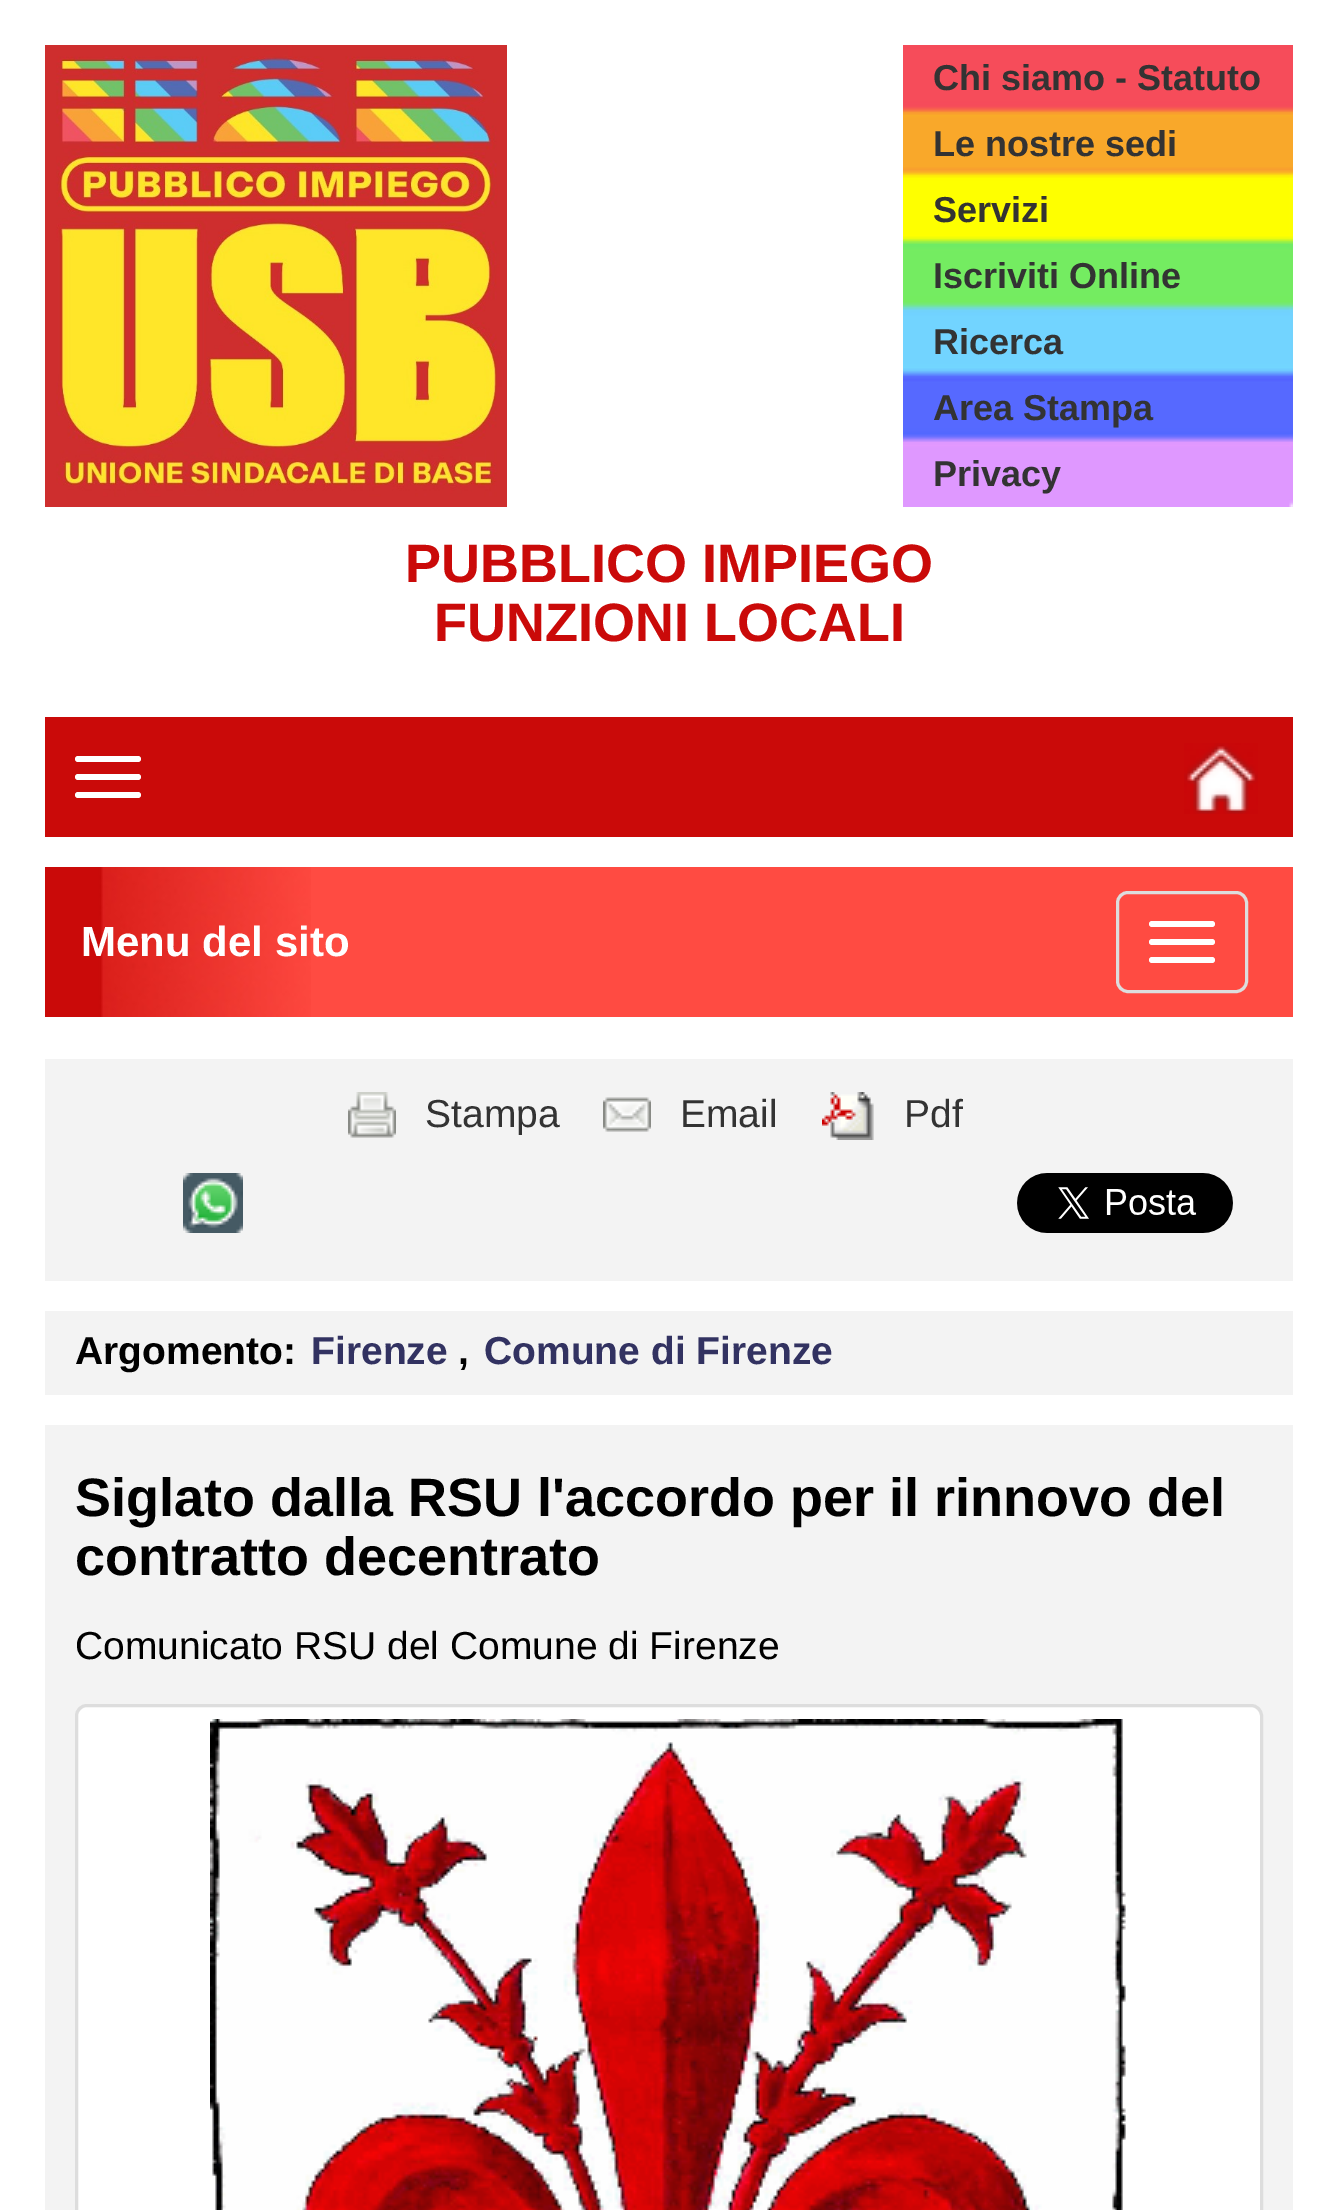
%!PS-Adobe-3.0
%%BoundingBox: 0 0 1337 2210
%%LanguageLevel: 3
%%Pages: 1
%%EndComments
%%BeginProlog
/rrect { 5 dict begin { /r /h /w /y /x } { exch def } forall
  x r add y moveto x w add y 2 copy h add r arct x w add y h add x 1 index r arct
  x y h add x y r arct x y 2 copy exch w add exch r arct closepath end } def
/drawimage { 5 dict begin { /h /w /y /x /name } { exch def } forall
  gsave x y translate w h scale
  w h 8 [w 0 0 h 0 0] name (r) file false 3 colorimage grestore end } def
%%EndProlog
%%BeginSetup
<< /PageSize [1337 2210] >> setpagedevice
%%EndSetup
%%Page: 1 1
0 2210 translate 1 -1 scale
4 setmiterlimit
1 setgray
0 0 1337 2210 rectfill
(images/1.raw) 45 45 462 462 drawimage
(images/2.raw) 903 45 390 462 drawimage
0.792 0.039 0.035 setrgbcolor
45 717 1248 120 rectfill
1 setgray
75 756 66 6 3 rrect fill
75 774 66 6 3 rrect fill
75 792 66 6 3 rrect fill
(images/3.raw) 1184 743 74 71 drawimage
1 0.294 0.259 setrgbcolor
311 867 982 150 rectfill
(images/4.raw) 45 867 266 150 drawimage
0.867 setgray
3 setlinewidth
1117.5 892.5 129 99 10.5 rrect stroke
1 setgray
1149 921 66 6 3 rrect fill
1149 939 66 6 3 rrect fill
1149 957 66 6 3 rrect fill
0.953 setgray
45 1059 1248 222 rectfill
(images/5.raw) 348 1092 48 46 drawimage
(images/6.raw) 603 1097 48 35 drawimage
(images/7.raw) 822 1092 52 48 drawimage
(images/8.raw) 183 1173 60 60 drawimage
(images/9.raw) 1017 1173 216 60 drawimage
45 1311 1248 84 rectfill
45 1425 1248 785 rectfill
1 setgray
76.5 1705.5 1185 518 10.5 rrect gsave fill grestore
0.867 setgray
stroke
(images/10.raw) 210 1719 916 491 drawimage
/LiberationSans-Bold [36 0 0 -36 0 0] selectfont
0.2 setgray
933 90 moveto (Chi siamo - Statuto) show
933 156 moveto (Le nostre sedi) show
933 222 moveto (Servizi) show
933 288 moveto (Iscriviti Online) show
933 354 moveto (Ricerca) show
933 420 moveto (Area Stampa) show
933 486 moveto (Privacy) show
/LiberationSans-Bold [54 0 0 -54 0 0] selectfont
0.792 0.039 0.035 setrgbcolor
405 582 moveto (PUBBLICO IMPIEGO) show
434 641 moveto (FUNZIONI LOCALI) show
/LiberationSans-Bold [42 0 0 -42 0 0] selectfont
1 setgray
81 956 moveto (Menu del sito) show
/LiberationSans-Regular [39 0 0 -39 0 0] selectfont
0.2 setgray
425 1127 moveto (Stampa) show
680 1127 moveto (Email) show
904 1127 moveto (Pdf) show
/LiberationSans-Bold [39 0 0 -39 0 0] selectfont
0 setgray
75 1364 moveto (Argomento:) show
0.196 0.196 0.38 setrgbcolor
311 1364 moveto (Firenze) show
0 setgray
458 1364 moveto (,) show
0.196 0.196 0.38 setrgbcolor
484 1364 moveto (Comune di Firenze) show
/LiberationSans-Bold [54 0 0 -54 0 0] selectfont
0 setgray
75 1516 moveto (Siglato dalla RSU l'accordo per il rinnovo del) show
75 1575 moveto (contratto decentrato) show
/LiberationSans-Regular [39 0 0 -39 0 0] selectfont
75 1659 moveto (Comunicato RSU del Comune di Firenze) show
showpage
%%EOF
